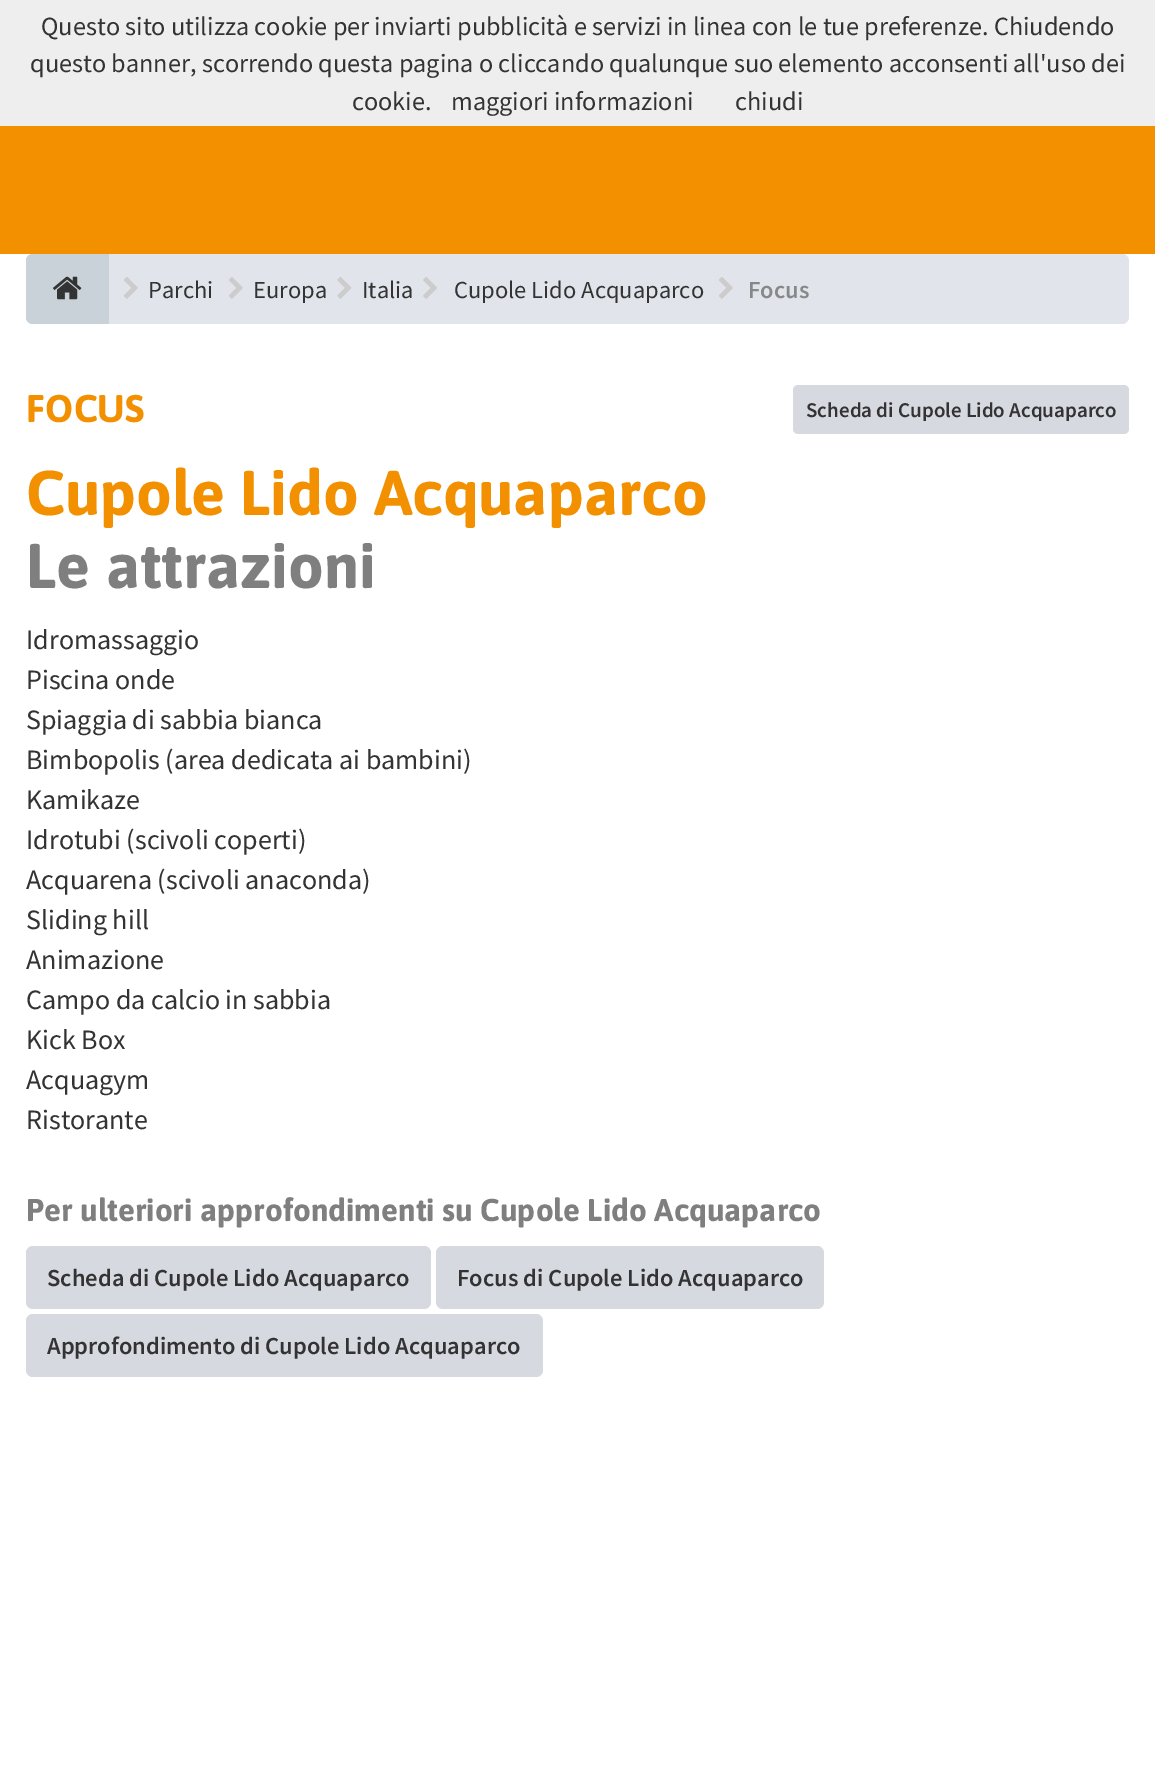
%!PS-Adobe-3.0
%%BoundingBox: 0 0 1155 1770
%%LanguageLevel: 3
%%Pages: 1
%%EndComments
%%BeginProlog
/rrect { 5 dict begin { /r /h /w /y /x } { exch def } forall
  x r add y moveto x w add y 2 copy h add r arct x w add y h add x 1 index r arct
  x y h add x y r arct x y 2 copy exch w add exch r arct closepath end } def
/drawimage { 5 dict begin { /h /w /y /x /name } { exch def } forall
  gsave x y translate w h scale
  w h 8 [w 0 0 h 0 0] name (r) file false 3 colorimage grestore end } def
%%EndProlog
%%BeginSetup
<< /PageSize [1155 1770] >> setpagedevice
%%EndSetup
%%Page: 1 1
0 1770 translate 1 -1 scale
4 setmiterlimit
1 setgray
0 0 1155 1770 rectfill
0.933 setgray
0 0 1155 126 rectfill
0.949 0.565 0 setrgbcolor
0 126 1155 128 rectfill
0.882 0.898 0.922 setrgbcolor
26 254 1103 70 7 rrect fill
0.784 0.824 0.847 setrgbcolor
newpath 33 254 moveto 109 254 lineto 109 324 lineto 33 324 lineto 29 324 26 321 26 317 curveto 26 261 lineto 26 257 29 254 33 254 curveto closepath fill
(images/1.raw) 53 276 29 24 drawimage
(images/2.raw) 123 277 15 22 drawimage
(images/2.raw) 228 277 15 22 drawimage
(images/3.raw) 337 277 15 22 drawimage
(images/4.raw) 423 277 14 22 drawimage
(images/2.raw) 718 277 15 22 drawimage
0.839 0.851 0.878 setrgbcolor
793 385 336 49 5 rrect fill
26 1246 405 63 7 rrect fill
436 1246 388 63 7 rrect fill
26 1314 517 63 7 rrect fill
/SourceSansPro-Regular [26.25 0 0 -26.25 0 0] selectfont
0.2 setgray
41 35 moveto (Questo sito utilizza cookie per inviarti pubblicità e servizi in linea con le tue preferenze. Chiudendo) show
30 72 moveto (questo banner, scorrendo questa pagina o cliccando qualunque suo elemento acconsenti all'uso dei) show
352 110 moveto (cookie.) show
451 110 moveto (maggiori informazioni) show
735 110 moveto (chiudi) show
/SourceSansPro-Regular [24.5 0 0 -24.5 0 0] selectfont
148 298 moveto (Parchi) show
253 298 moveto (Europa) show
362 298 moveto (Italia) show
454 298 moveto (Cupole Lido Acquaparco) show
/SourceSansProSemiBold-SemiBold [24.5 0 0 -24.5 0 0] selectfont
0.533 setgray
748 298 moveto (Focus) show
/Asap-Bold [38.5 0 0 -38.5 0 0] selectfont
0.949 0.565 0 setrgbcolor
26 422 moveto (FOCUS) show
/SourceSansProSemiBold-SemiBold [21 0 0 -21 0 0] selectfont
0.2 setgray
806 417 moveto (Scheda di Cupole Lido Acquaparco) show
/Asap-Bold [63 0 0 -63 0 0] selectfont
0.949 0.565 0 setrgbcolor
26 515 moveto (Cupole Lido Acquaparco) show
0.498 setgray
26 588 moveto (Le attrazioni) show
/SourceSansPro-Regular [28 0 0 -28 0 0] selectfont
0.2 setgray
26 649 moveto (Idromassaggio) show
26 689 moveto (Piscina onde) show
26 729 moveto (Spiaggia di sabbia bianca) show
26 769 moveto (Bimbopolis \(area dedicata ai bambini\)) show
26 809 moveto (Kamikaze) show
26 849 moveto (Idrotubi \(scivoli coperti\)) show
26 889 moveto (Acquarena \(scivoli anaconda\)) show
26 929 moveto (Sliding hill) show
26 969 moveto (Animazione) show
26 1009 moveto (Campo da calcio in sabbia) show
26 1049 moveto (Kick Box) show
26 1089 moveto (Acquagym) show
26 1129 moveto (Ristorante) show
/Asap-Bold [31.5 0 0 -31.5 0 0] selectfont
0.498 setgray
26 1221 moveto (Per ulteriori approfondimenti su Cupole Lido Acquaparco) show
/SourceSansProSemiBold-SemiBold [24.5 0 0 -24.5 0 0] selectfont
0.2 setgray
47 1286 moveto (Scheda di Cupole Lido Acquaparco) show
457 1286 moveto (Focus di Cupole Lido Acquaparco) show
47 1354 moveto (Approfondimento di Cupole Lido Acquaparco) show
showpage
%%EOF
